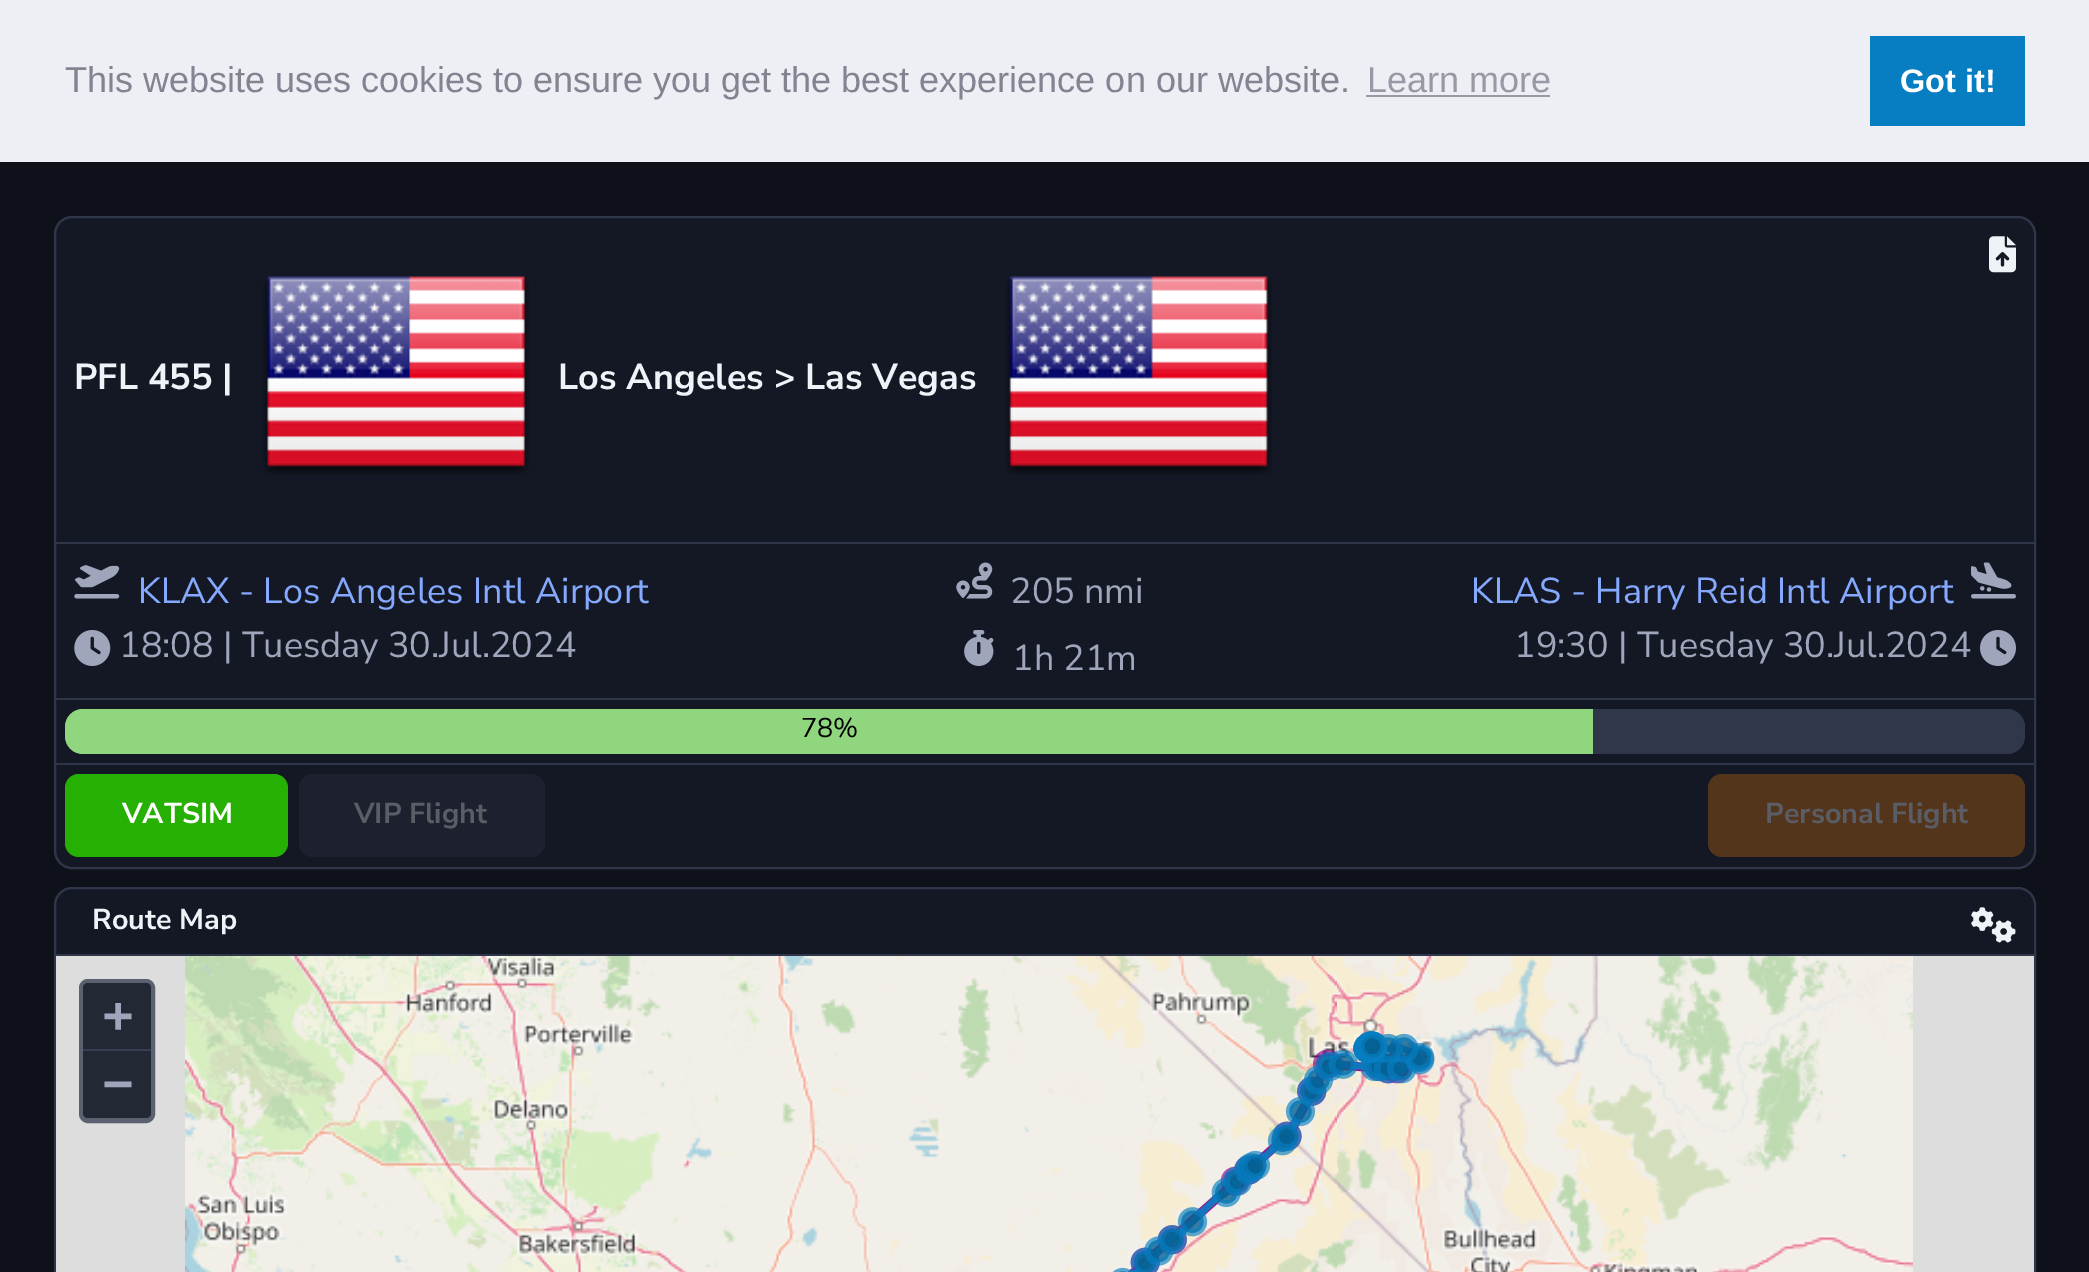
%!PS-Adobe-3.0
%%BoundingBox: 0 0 2089 1272
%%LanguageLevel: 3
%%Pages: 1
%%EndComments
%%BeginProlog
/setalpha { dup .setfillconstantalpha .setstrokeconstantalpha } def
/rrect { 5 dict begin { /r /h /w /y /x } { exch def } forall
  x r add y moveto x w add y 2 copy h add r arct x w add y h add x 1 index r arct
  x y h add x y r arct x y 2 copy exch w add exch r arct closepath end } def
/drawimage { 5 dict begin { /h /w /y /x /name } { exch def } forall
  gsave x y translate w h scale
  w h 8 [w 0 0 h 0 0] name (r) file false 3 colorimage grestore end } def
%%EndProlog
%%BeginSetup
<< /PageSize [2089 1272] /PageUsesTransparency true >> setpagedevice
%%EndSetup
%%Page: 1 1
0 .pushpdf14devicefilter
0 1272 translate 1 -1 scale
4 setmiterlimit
0.059 0.067 0.102 setrgbcolor
0 0 2089 1272 rectfill
0.929 0.937 0.961 setrgbcolor
0 0 2089 162 rectfill
0.596 0.6 0.647 setrgbcolor
1366 95 184 2 rectfill
0.024 0.494 0.757 setrgbcolor
1870 36 155 90 rectfill
0.078 0.094 0.141 setrgbcolor
54 216 1982 653 18 rrect fill
0.78 setalpha
0.216 0.243 0.325 setrgbcolor
2 setlinewidth
55 217 1980 651 17 rrect stroke
1 setalpha
0.184 0.212 0.286 setrgbcolor
56 542 1978 2 rectfill
(images/1.raw) 1989 236 27 37 drawimage
(images/2.raw) 263 276 266 199 drawimage
(images/3.raw) 1005 276 267 199 drawimage
(images/4.raw) 74 565 46 34 drawimage
(images/5.raw) 956 562 37 37 drawimage
(images/6.raw) 1971 562 45 37 drawimage
(images/7.raw) 74 630 37 36 drawimage
(images/8.raw) 964 630 30 36 drawimage
(images/9.raw) 1980 630 36 36 drawimage
56 698 1978 2 rectfill
0.192 0.216 0.29 setrgbcolor
65 709 1960 45 18 rrect fill
0.565 0.839 0.498 setrgbcolor
newpath 83 709 moveto 1593 709 lineto 1593 754 lineto 83 754 lineto 73 754 65 746 65 736 curveto 65 727 lineto 65 717 73 709 83 709 curveto closepath fill
0.184 0.212 0.286 setrgbcolor
56 763 1978 2 rectfill
0.145 0.69 0.012 setrgbcolor
65 774 223 83 14 rrect fill
0.114 0.129 0.184 setrgbcolor
299 774 246 83 14 rrect fill
0.325 0.208 0.11 setrgbcolor
1708 774 317 83 14 rrect fill
0.078 0.094 0.141 setrgbcolor
54 887 1982 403 18 rrect fill
0.78 setalpha
0.216 0.243 0.325 setrgbcolor
55 888 1980 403 17 rrect stroke
1 setalpha
0.184 0.212 0.286 setrgbcolor
56 954 1978 2 rectfill
(images/10.raw) 1971 907 45 36 drawimage
0.867 setgray
56 956 1978 316 rectfill
0.361 0.38 0.443 setrgbcolor
5 setlinewidth
81.5 981.5 71 139 6.5 rrect stroke
0.133 0.157 0.204 setrgbcolor
newpath 88 983 moveto 146 983 lineto 149 983 151 985 151 988 curveto 151 1051 lineto 83 1051 lineto 83 988 lineto 83 985 85 983 88 983 curveto closepath fill
0.216 0.243 0.325 setrgbcolor
83 1049 68 2 rectfill
0.133 0.157 0.204 setrgbcolor
newpath 83 1051 moveto 151 1051 lineto 151 1113 lineto 151 1116 149 1118 146 1118 curveto 88 1118 lineto 85 1118 83 1116 83 1113 curveto closepath fill
(images/11.raw) 185 956 576 316 drawimage
(images/12.raw) 761 956 576 316 drawimage
(images/13.raw) 1337 956 576 316 drawimage
(images/14.raw) 1112 1031 323 241 drawimage
/LiberationSans-Regular [36 0 0 -36 0 0] selectfont
0.514 0.514 0.569 setrgbcolor
65 92 moveto (This website uses cookies to ensure you get the best experience on our website.) show
0.596 0.6 0.647 setrgbcolor
1367 92 moveto (Learn more) show
/LiberationSans-Bold [32.5 0 0 -32.5 0 0] selectfont
1 setgray
1900 92 moveto (Got it!) show
/NunitoSans-Bold [36 0 0 -36 0 0] selectfont
0.937 0.949 0.965 setrgbcolor
74 389 moveto (PFL 455 |) show
558 389 moveto (Los Angeles > Las Vegas) show
/NunitoSans-Regular [36 0 0 -36 0 0] selectfont
0.522 0.663 1 setrgbcolor
138 603 moveto (KLAX - Los Angeles Intl Airport) show
0.624 0.651 0.737 setrgbcolor
1010 603 moveto (205 nmi) show
0.522 0.663 1 setrgbcolor
1471 603 moveto (KLAS - Harry Reid Intl Airport) show
0.624 0.651 0.737 setrgbcolor
119 657 moveto (18:08 | Tuesday 30.Jul.2024) show
1012 670 moveto (1h 21m) show
1514 657 moveto (19:30 | Tuesday 30.Jul.2024) show
/NunitoSans-Regular [27 0 0 -27 0 0] selectfont
0 setgray
801 737 moveto (78%) show
/NunitoSans-Bold [28.75 0 0 -28.75 0 0] selectfont
1 setgray
122 823 moveto (VATSIM) show
0.357 0.365 0.4 setrgbcolor
354 823 moveto (VIP Flight) show
1765 823 moveto (Personal Flight) show
0.937 0.949 0.965 setrgbcolor
92 929 moveto (Route Map) show
/DejaVuSansMono-Bold [50 0 0 -50 0 0] selectfont
0.624 0.651 0.737 setrgbcolor
103 1032 moveto (+) show
103 1100 moveto (−) show
.poppdf14devicefilter showpage
%%EOF
